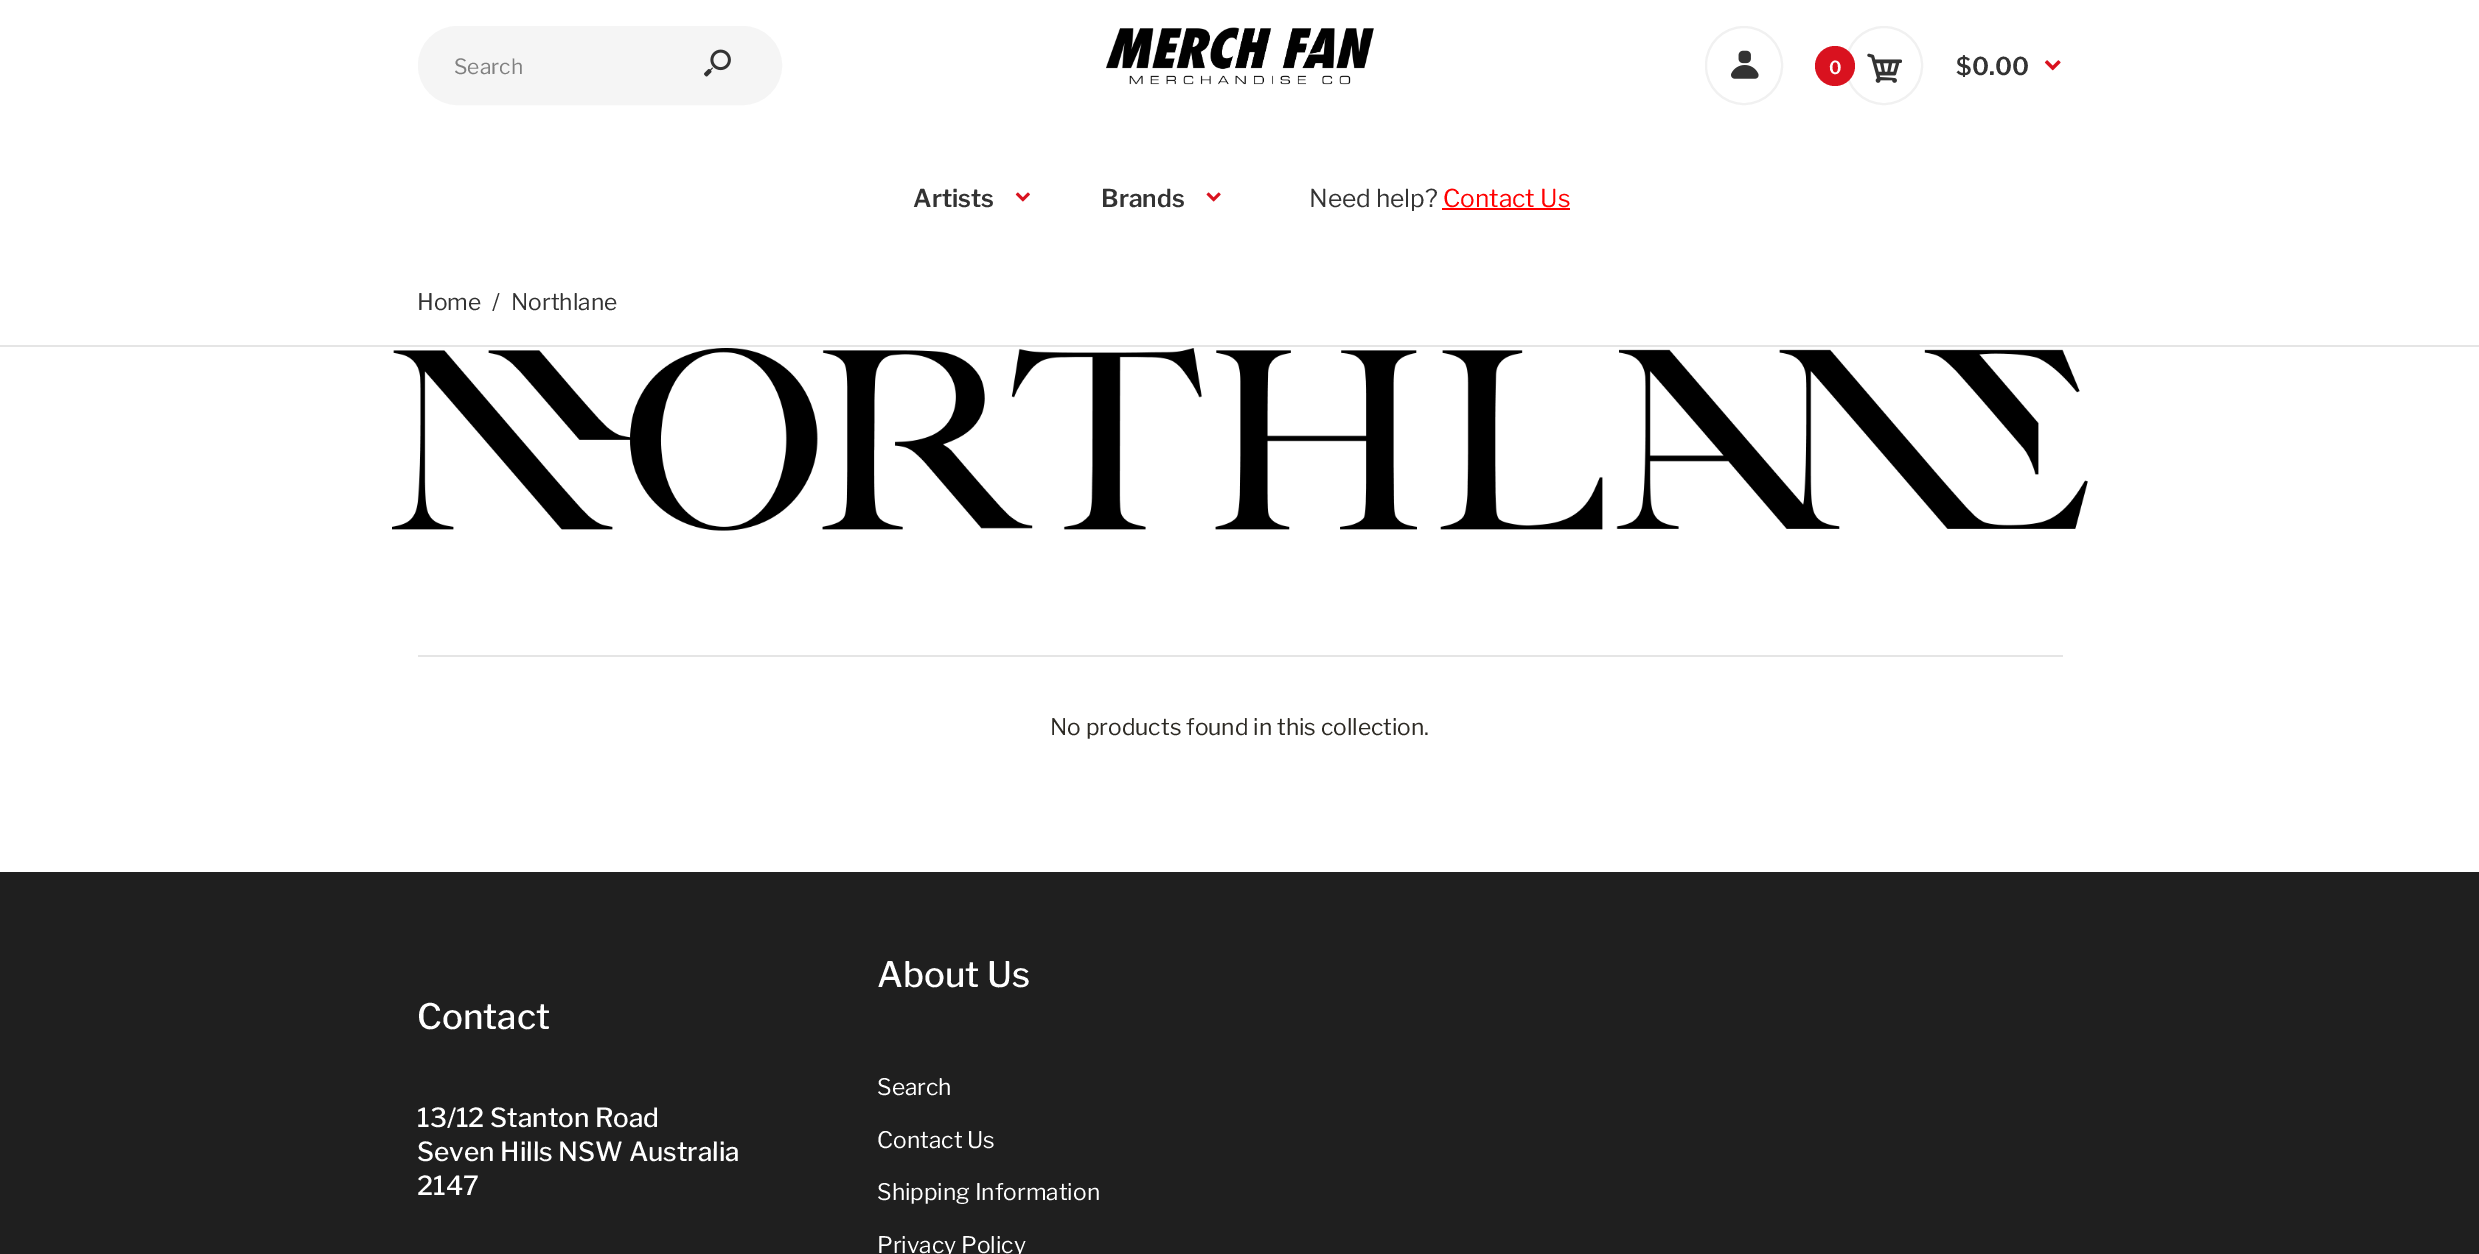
%!PS-Adobe-3.0
%%BoundingBox: 0 0 2479 1254
%%LanguageLevel: 3
%%Pages: 1
%%EndComments
%%BeginProlog
/rrect { 5 dict begin { /r /h /w /y /x } { exch def } forall
  x r add y moveto x w add y 2 copy h add r arct x w add y h add x 1 index r arct
  x y h add x y r arct x y 2 copy exch w add exch r arct closepath end } def
/drawimage { 5 dict begin { /h /w /y /x /name } { exch def } forall
  gsave x y translate w h scale
  w h 8 [w 0 0 h 0 0] name (r) file false 3 colorimage grestore end } def
%%EndProlog
%%BeginSetup
<< /PageSize [2479 1254] >> setpagedevice
%%EndSetup
%%Page: 1 1
0 1254 translate 1 -1 scale
4 setmiterlimit
1 setgray
0 0 2479 1254 rectfill
0.961 setgray
419 27 362 77 38.5 rrect gsave fill grestore
2 setlinewidth
stroke
(images/1.raw) 704 49 27 28 drawimage
(images/2.raw) 1106 27 268 58 drawimage
0.945 setgray
1706 27 76 77 38 rrect stroke
(images/3.raw) 1731 50 28 29 drawimage
1846 27 76 77 38 rrect stroke
0.851 0.071 0.122 setrgbcolor
newpath 1835 66 20 0 360 arc closepath fill
(images/4.raw) 1867 53 35 30 drawimage
(images/5.raw) 2044 60 17 11 drawimage
(images/6.raw) 1015 192 15 10 drawimage
(images/7.raw) 1206 192 15 10 drawimage
1 0 0 setrgbcolor
1442 208 128 2 rectfill
0.898 setgray
0 345 2479 2 rectfill
(images/8.raw) 392 348 1696 183 drawimage
418 655 1645 2 rectfill
0.122 setgray
0 872 2479 382 rectfill
/LibreFranklin-Regular [21 0 0 -21 0 0] selectfont
0.502 setgray
454 74 moveto (Search) show
/LibreFranklin-SemiBold [18 0 0 -18 0 0] selectfont
1 setgray
1829 74 moveto (0) show
/LibreFranklin-SemiBold [24.5 0 0 -24.5 0 0] selectfont
0.2 setgray
1956 75 moveto ($0.00) show
913 207 moveto (Artists) show
1101 207 moveto (Brands) show
/LibreFranklin-Regular [24.5 0 0 -24.5 0 0] selectfont
1309 207 moveto (Need help?) show
1 0 0 setrgbcolor
1443 207 moveto (Contact Us) show
/LibreFranklin-Regular [22.75 0 0 -22.75 0 0] selectfont
0.2 setgray
417 310 moveto (Home) show
492 310 moveto (/) show
511 310 moveto (Northlane) show
0.176 0.165 0.141 setrgbcolor
1050 735 moveto (No products found in this collection.) show
/LibreFranklin-Medium [35 0 0 -35 0 0] selectfont
1 setgray
417 1029 moveto (Contact) show
/LibreFranklin-Medium [26.25 0 0 -26.25 0 0] selectfont
417 1127 moveto (13/12 Stanton Road) show
417 1161 moveto (Seven Hills NSW Australia) show
417 1195 moveto (2147) show
/LibreFranklin-Medium [35 0 0 -35 0 0] selectfont
877 987 moveto (About Us) show
/LibreFranklin-Regular [22.75 0 0 -22.75 0 0] selectfont
877 1095 moveto (Search) show
877 1148 moveto (Contact Us) show
877 1200 moveto (Shipping Information) show
877 1253 moveto (Privacy Policy) show
showpage
%%EOF
